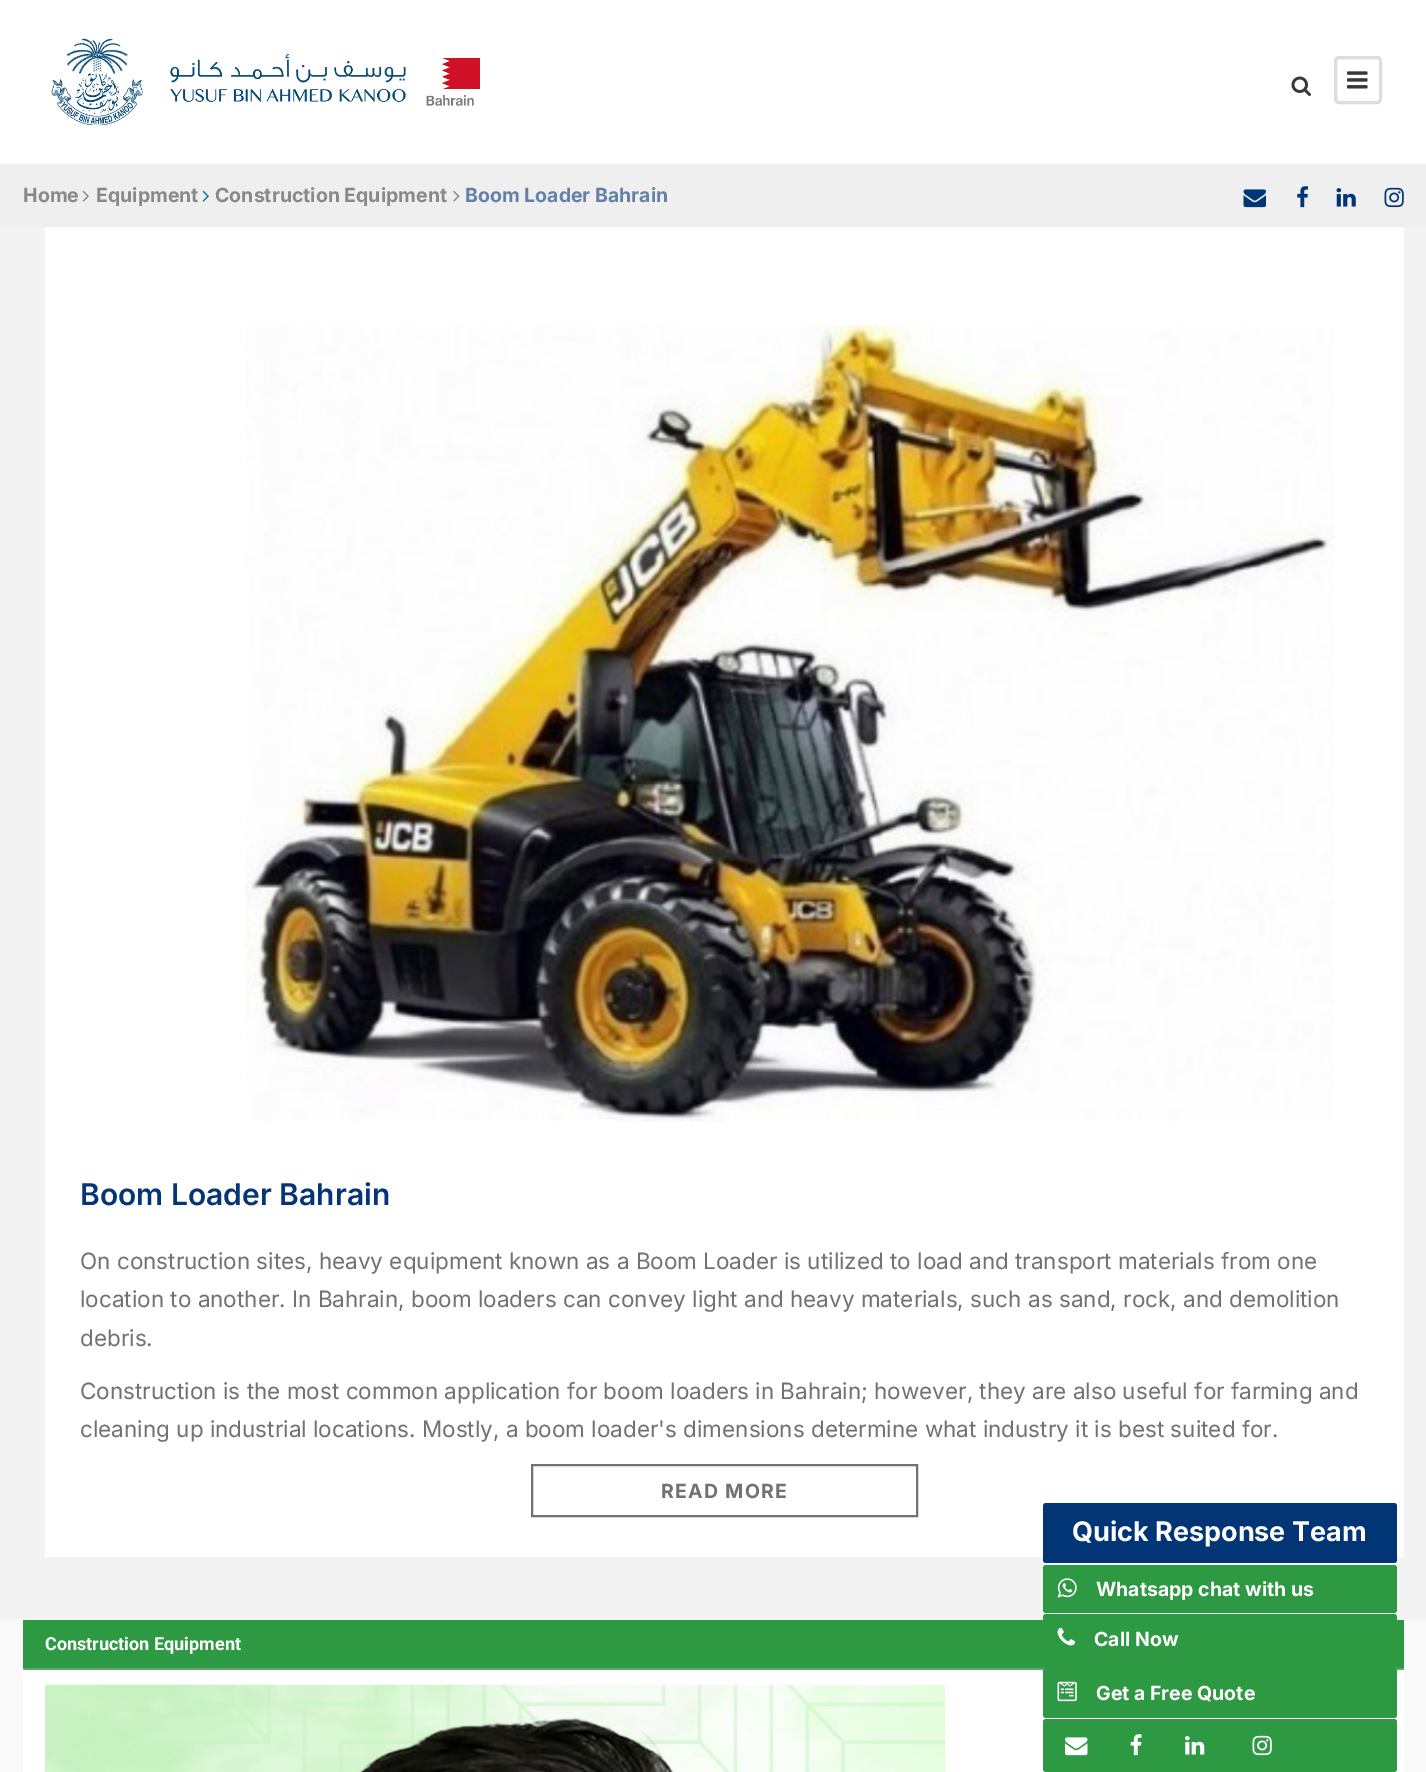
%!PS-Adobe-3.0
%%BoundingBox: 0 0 1426 1772
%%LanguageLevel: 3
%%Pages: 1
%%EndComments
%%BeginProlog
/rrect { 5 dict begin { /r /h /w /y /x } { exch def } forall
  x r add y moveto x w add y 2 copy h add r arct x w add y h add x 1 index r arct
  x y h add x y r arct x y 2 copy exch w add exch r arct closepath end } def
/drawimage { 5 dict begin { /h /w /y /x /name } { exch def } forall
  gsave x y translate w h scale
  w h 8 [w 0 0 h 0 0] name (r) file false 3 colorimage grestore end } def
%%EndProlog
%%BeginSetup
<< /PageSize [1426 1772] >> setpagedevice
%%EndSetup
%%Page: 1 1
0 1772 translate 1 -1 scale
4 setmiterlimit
1 setgray
0 0 1426 1772 rectfill
(images/1.raw) 51 38 429 87 drawimage
(images/2.raw) 1291 76 20 20 drawimage
0.867 setgray
3 setlinewidth
1335.5 57.5 45 45 3.5 rrect stroke
(images/3.raw) 1347 71 21 18 drawimage
0.937 setgray
0 164 1426 63 rectfill
(images/4.raw) 82 190 7 12 drawimage
(images/5.raw) 202 190 7 12 drawimage
(images/6.raw) 453 190 7 12 drawimage
(images/7.raw) 1243 189 23 19 drawimage
(images/8.raw) 1297 186 12 22 drawimage
(images/9.raw) 1336 188 20 19 drawimage
(images/10.raw) 1384 187 20 21 drawimage
0.953 setgray
0 227 1426 1392 rectfill
1 setgray
45 227 1359 1330 rectfill
(images/11.raw) 245 325 1089 797 drawimage
0.447 setgray
2 setlinewidth
532 1465 385 51 rectstroke
0.976 setgray
0 1619 1426 153 rectfill
1 setgray
23 1670 1381 102 rectfill
0.18 0.6 0.263 setrgbcolor
23 1620 1381 48 rectfill
0.365 0.659 0.424 setrgbcolor
23 1668 1381 2 rectfill
(images/12.raw) 45 1684 900 88 drawimage
0.008 0.208 0.463 setrgbcolor
1043 1503 354 60 3 rrect fill
0.18 0.6 0.263 setrgbcolor
1043 1565 354 48 3 rrect fill
(images/13.raw) 1057 1578 20 20 drawimage
1043 1614 354 48 3 rrect fill
(images/14.raw) 1057 1627 19 19 drawimage
1043 1668 354 50 3 rrect fill
(images/15.raw) 1057 1681 20 21 drawimage
1043 1719 354 53 3 rrect fill
(images/16.raw) 1065 1737 23 19 drawimage
(images/17.raw) 1130 1734 12 22 drawimage
(images/18.raw) 1185 1736 20 19 drawimage
(images/19.raw) 1252 1735 20 21 drawimage
/Inter-Bold [19.5 0 0 -19.5 0 0] selectfont
0.537 setgray
23 202 moveto (Home) show
96 202 moveto (Equipment) show
215 202 moveto (Construction Equipment) show
0.388 0.506 0.659 setrgbcolor
465 202 moveto (Boom Loader Bahrain) show
/Inter-SemiBold [30 0 0 -30 0 0] selectfont
0.016 0.208 0.463 setrgbcolor
80 1205 moveto (Boom Loader Bahrain) show
/Inter-Regular [22.5 0 0 -22.5 0 0] selectfont
0.447 setgray
80 1269 moveto (On construction sites, heavy equipment known as a Boom Loader is utilized to load and transport materials from one) show
80 1307 moveto (location to another. In Bahrain, boom loaders can convey light and heavy materials, such as sand, rock, and demolition) show
80 1346 moveto (debris.) show
80 1399 moveto (Construction is the most common application for boom loaders in Bahrain; however, they are also useful for farming and) show
80 1437 moveto (cleaning up industrial locations. Mostly, a boom loader's dimensions determine what industry it is best suited for.) show
/Inter-Bold [19.5 0 0 -19.5 0 0] selectfont
661 1498 moveto 1.25 0 (READ MORE) ashow
/Roboto-Bold [18 0 0 -18 0 0] selectfont
1 setgray
45 1650 moveto (Construction Equipment) show
/Inter-Bold [27 0 0 -27 0 0] selectfont
1072 1541 moveto (Quick Response Team) show
/Inter-Bold [19.5 0 0 -19.5 0 0] selectfont
1096 1596 moveto (Whatsapp chat with us) show
1094 1646 moveto (Call Now) show
1096 1700 moveto (Get a Free Quote) show
showpage
%%EOF
